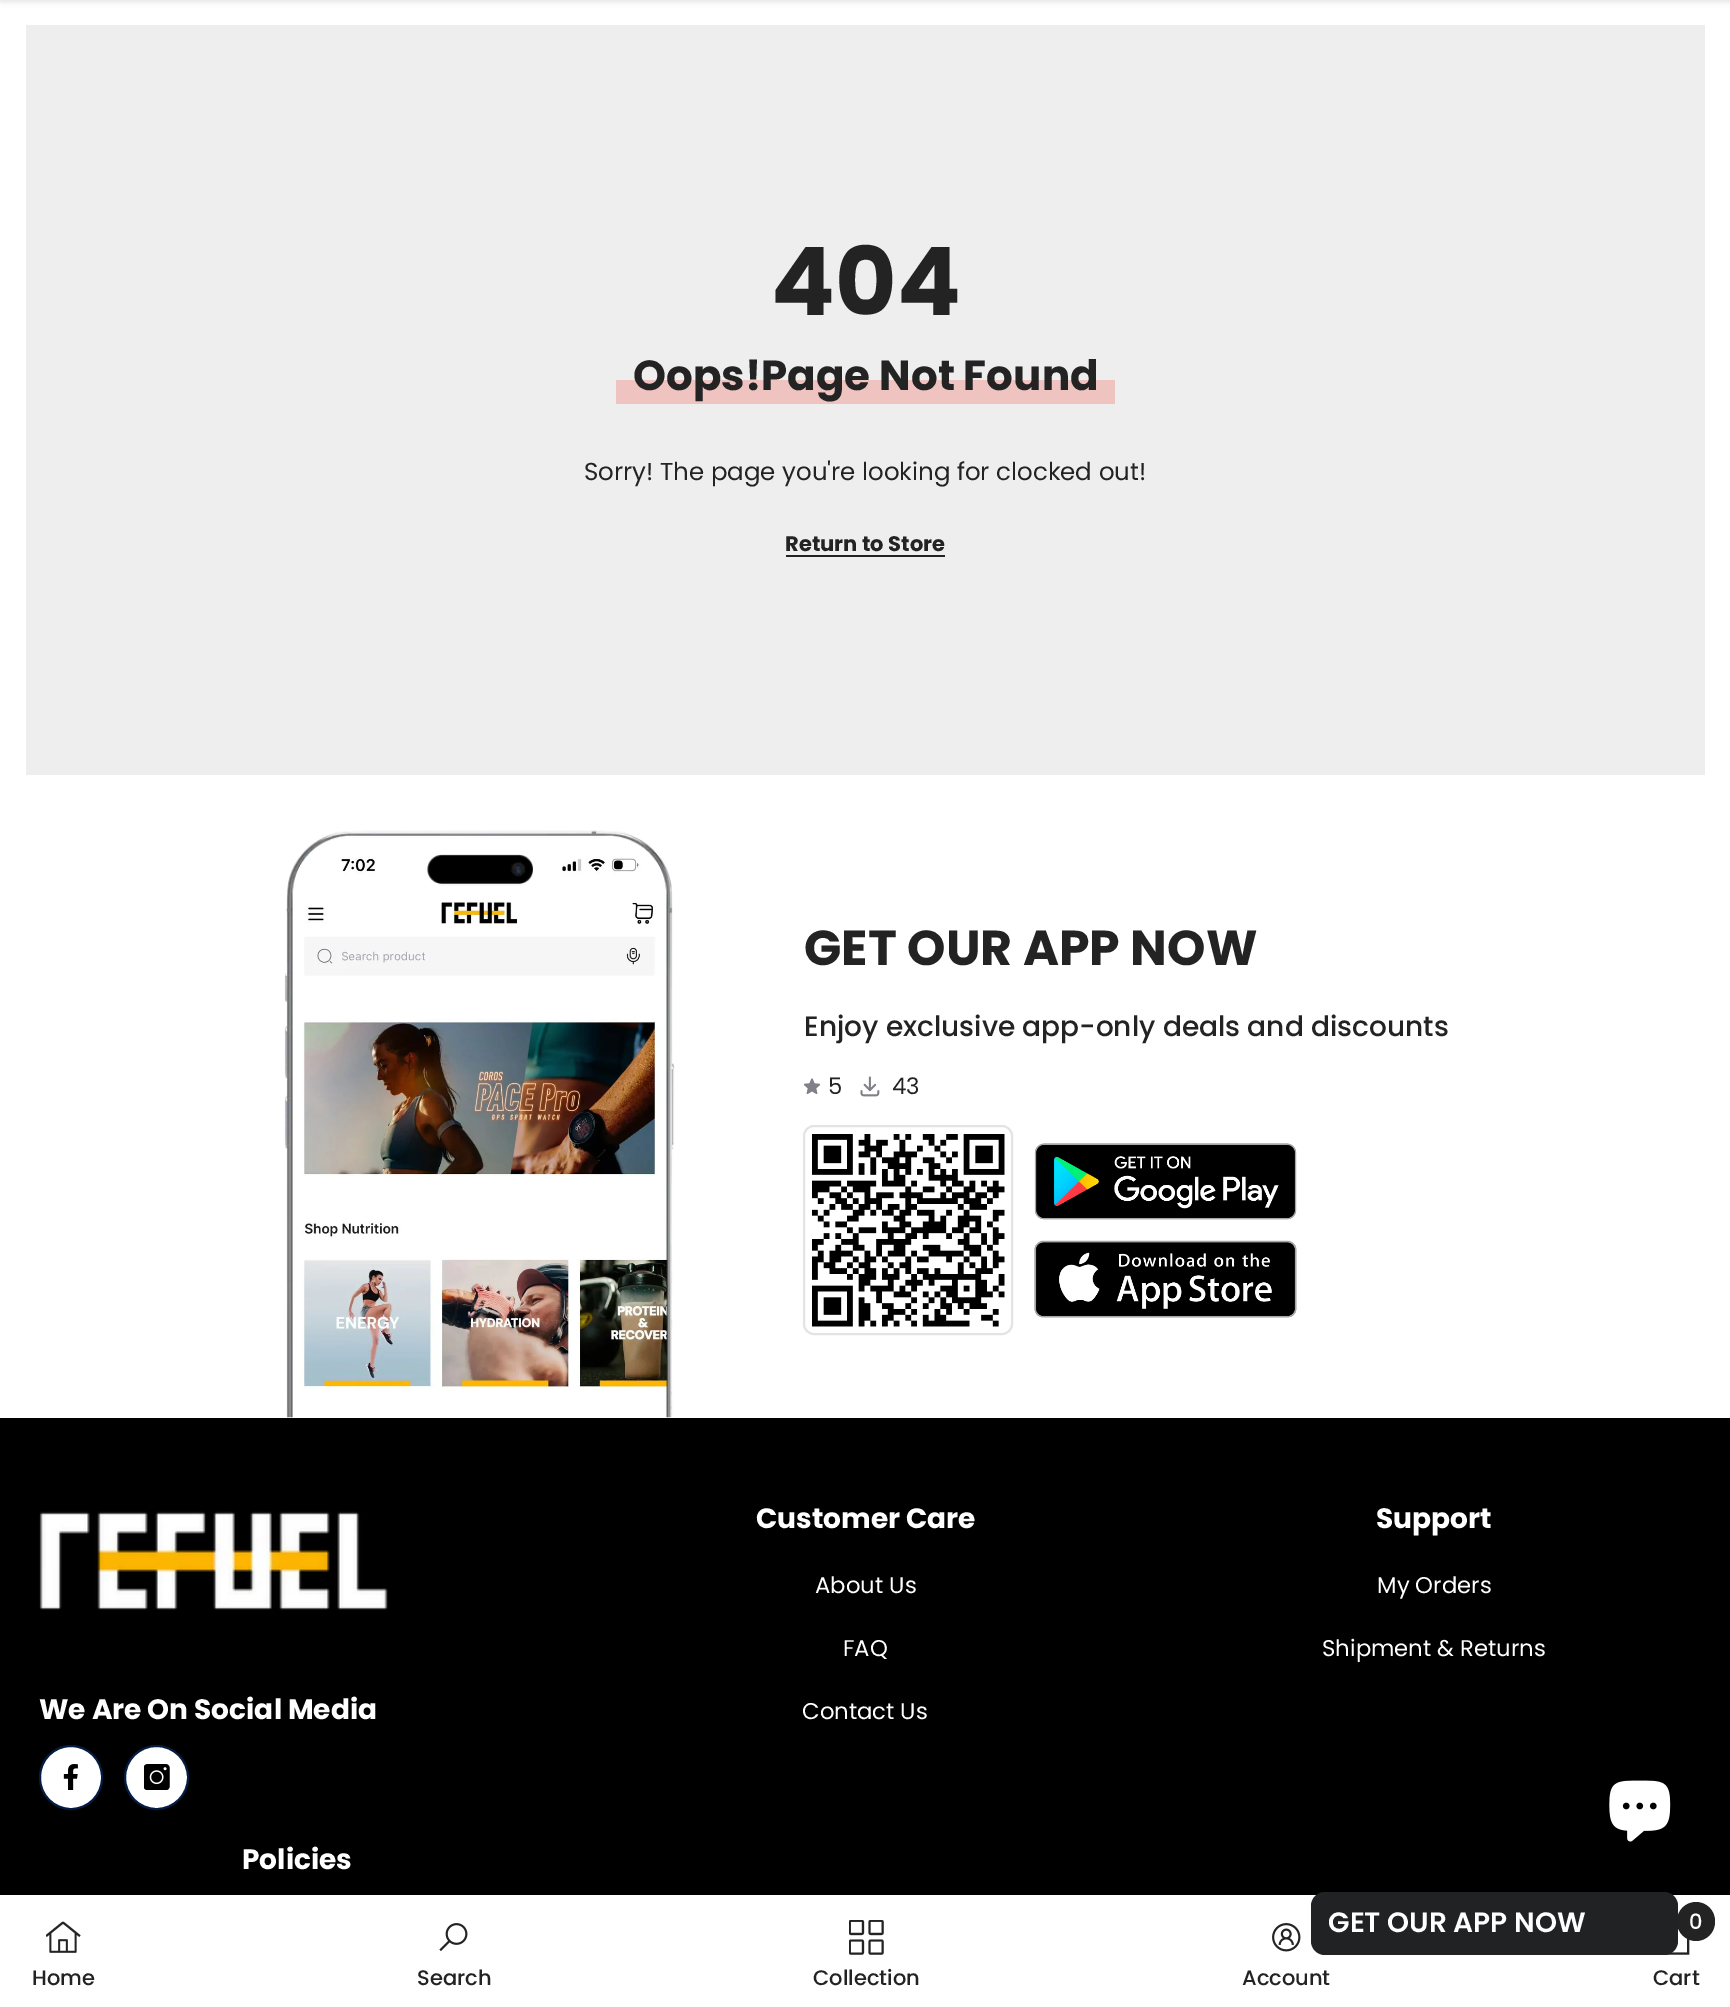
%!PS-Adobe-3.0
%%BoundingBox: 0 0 1730 2007
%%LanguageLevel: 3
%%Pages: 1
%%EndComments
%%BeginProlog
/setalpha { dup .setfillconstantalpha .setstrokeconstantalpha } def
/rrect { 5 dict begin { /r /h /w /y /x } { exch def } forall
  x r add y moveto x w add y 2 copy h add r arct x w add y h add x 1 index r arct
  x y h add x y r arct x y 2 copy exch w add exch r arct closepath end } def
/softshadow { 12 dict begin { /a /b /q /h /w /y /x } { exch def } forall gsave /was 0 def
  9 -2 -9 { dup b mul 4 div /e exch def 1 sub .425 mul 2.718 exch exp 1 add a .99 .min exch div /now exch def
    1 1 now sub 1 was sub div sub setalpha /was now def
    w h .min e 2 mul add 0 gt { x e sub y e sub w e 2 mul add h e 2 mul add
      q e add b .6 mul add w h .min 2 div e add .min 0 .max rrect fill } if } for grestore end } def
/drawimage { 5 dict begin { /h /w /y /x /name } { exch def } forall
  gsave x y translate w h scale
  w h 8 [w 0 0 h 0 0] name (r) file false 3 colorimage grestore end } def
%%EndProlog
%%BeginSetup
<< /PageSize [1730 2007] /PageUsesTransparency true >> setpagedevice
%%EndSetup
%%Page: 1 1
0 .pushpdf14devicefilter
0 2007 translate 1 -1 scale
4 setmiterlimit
1 setgray
0 0 1730 2007 rectfill
0 setgray
0 -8 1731 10 0 2.5 0.1 softshadow
0.933 setgray
26 25 1679 750 rectfill
0.937 0.765 0.753 setrgbcolor
616 380 499 24 rectfill
0.137 setgray
786 555 159 2 rectfill
(images/2.raw) 301 857 370 535 drawimage
(images/1.raw) 284 830 391 588 drawimage
(images/3.raw) 804 1078 16 16 drawimage
(images/4.raw) 860 1076 20 21 drawimage
0.89 setgray
2 setlinewidth
804 1126 208 208 10 rrect stroke
(images/5.raw) 812 1134 193 193 drawimage
(images/6.raw) 1034 1143 263 77 drawimage
(images/7.raw) 1034 1240 263 78 drawimage
0 setgray
0 1418 1730 477 rectfill
(images/8.raw) 39 1511 349 99 drawimage
1 setgray
40 1746 62 63 31 rrect gsave fill grestore
0.02 0.11 0.259 setrgbcolor
stroke
(images/9.raw) 63 1764 15 26 drawimage
1 setgray
newpath 156.5 1777.5 31.5 0 360 arc closepath gsave fill grestore
0.02 0.11 0.259 setrgbcolor
stroke
(images/10.raw) 144 1764 26 26 drawimage
(images/11.raw) 46 1921 35 32 drawimage
(images/12.raw) 439 1923 29 29 drawimage
(images/13.raw) 849 1920 35 35 drawimage
(images/14.raw) 1272 1923 29 29 drawimage
(images/15.raw) 1664 1928 26 27 drawimage
0.137 setgray
1677 1902 38 39 19 rrect fill
(images/16.raw) 1609 1780 62 62 drawimage
0.125 0.133 0.137 setrgbcolor
1311 1892 367 63 14 rrect fill
/Poppins-Bold [94.5 0 0 -94.5 0 0] selectfont
0.137 setgray
771 315 moveto (404) show
/Poppins-Bold [42 0 0 -42 0 0] selectfont
633 390 moveto (Oops!Page Not Found) show
/Poppins-Regular [24.5 0 0 -24.5 0 0] selectfont
584 480 moveto (Sorry! The page you're looking for clocked out!) show
/Poppins-Bold [21 0 0 -21 0 0] selectfont
785 551 moveto (Return to Store) show
/Poppins-Bold [49 0 0 -49 0 0] selectfont
804 965 moveto (GET OUR APP NOW) show
/Poppins-Medium [28 0 0 -28 0 0] selectfont
804 1036 moveto (Enjoy exclusive app-only deals and discounts) show
/Poppins-Regular [22.75 0 0 -22.75 0 0] selectfont
828 1094 moveto (5) show
892 1094 moveto (43) show
/Poppins-Bold [28 0 0 -28 0 0] selectfont
1 setgray
756 1528 moveto (Customer Care) show
/Poppins-Regular [22.75 0 0 -22.75 0 0] selectfont
815 1593 moveto (About Us) show
843 1656 moveto (FAQ) show
802 1719 moveto (Contact Us) show
/Poppins-Bold [28 0 0 -28 0 0] selectfont
1376 1528 moveto (Support) show
/Poppins-Regular [22.75 0 0 -22.75 0 0] selectfont
1377 1593 moveto (My Orders) show
1322 1656 moveto (Shipment & Returns) show
/Poppins-Bold [28 0 0 -28 0 0] selectfont
39 1719 moveto (We Are On Social Media) show
242 1869 moveto (Policies) show
/Poppins-Medium [21 0 0 -21 0 0] selectfont
0.137 setgray
32 1985 moveto (Home) show
417 1985 moveto (Search) show
813 1985 moveto (Collection) show
1242 1985 moveto (Account) show
1 setgray
1689 1929 moveto (0) show
0.137 setgray
1653 1985 moveto (Cart) show
/Poppins-SemiBold [28 0 0 -28 0 0] selectfont
1 setgray
1328 1932 moveto (GET OUR APP NOW) show
.poppdf14devicefilter showpage
%%EOF
